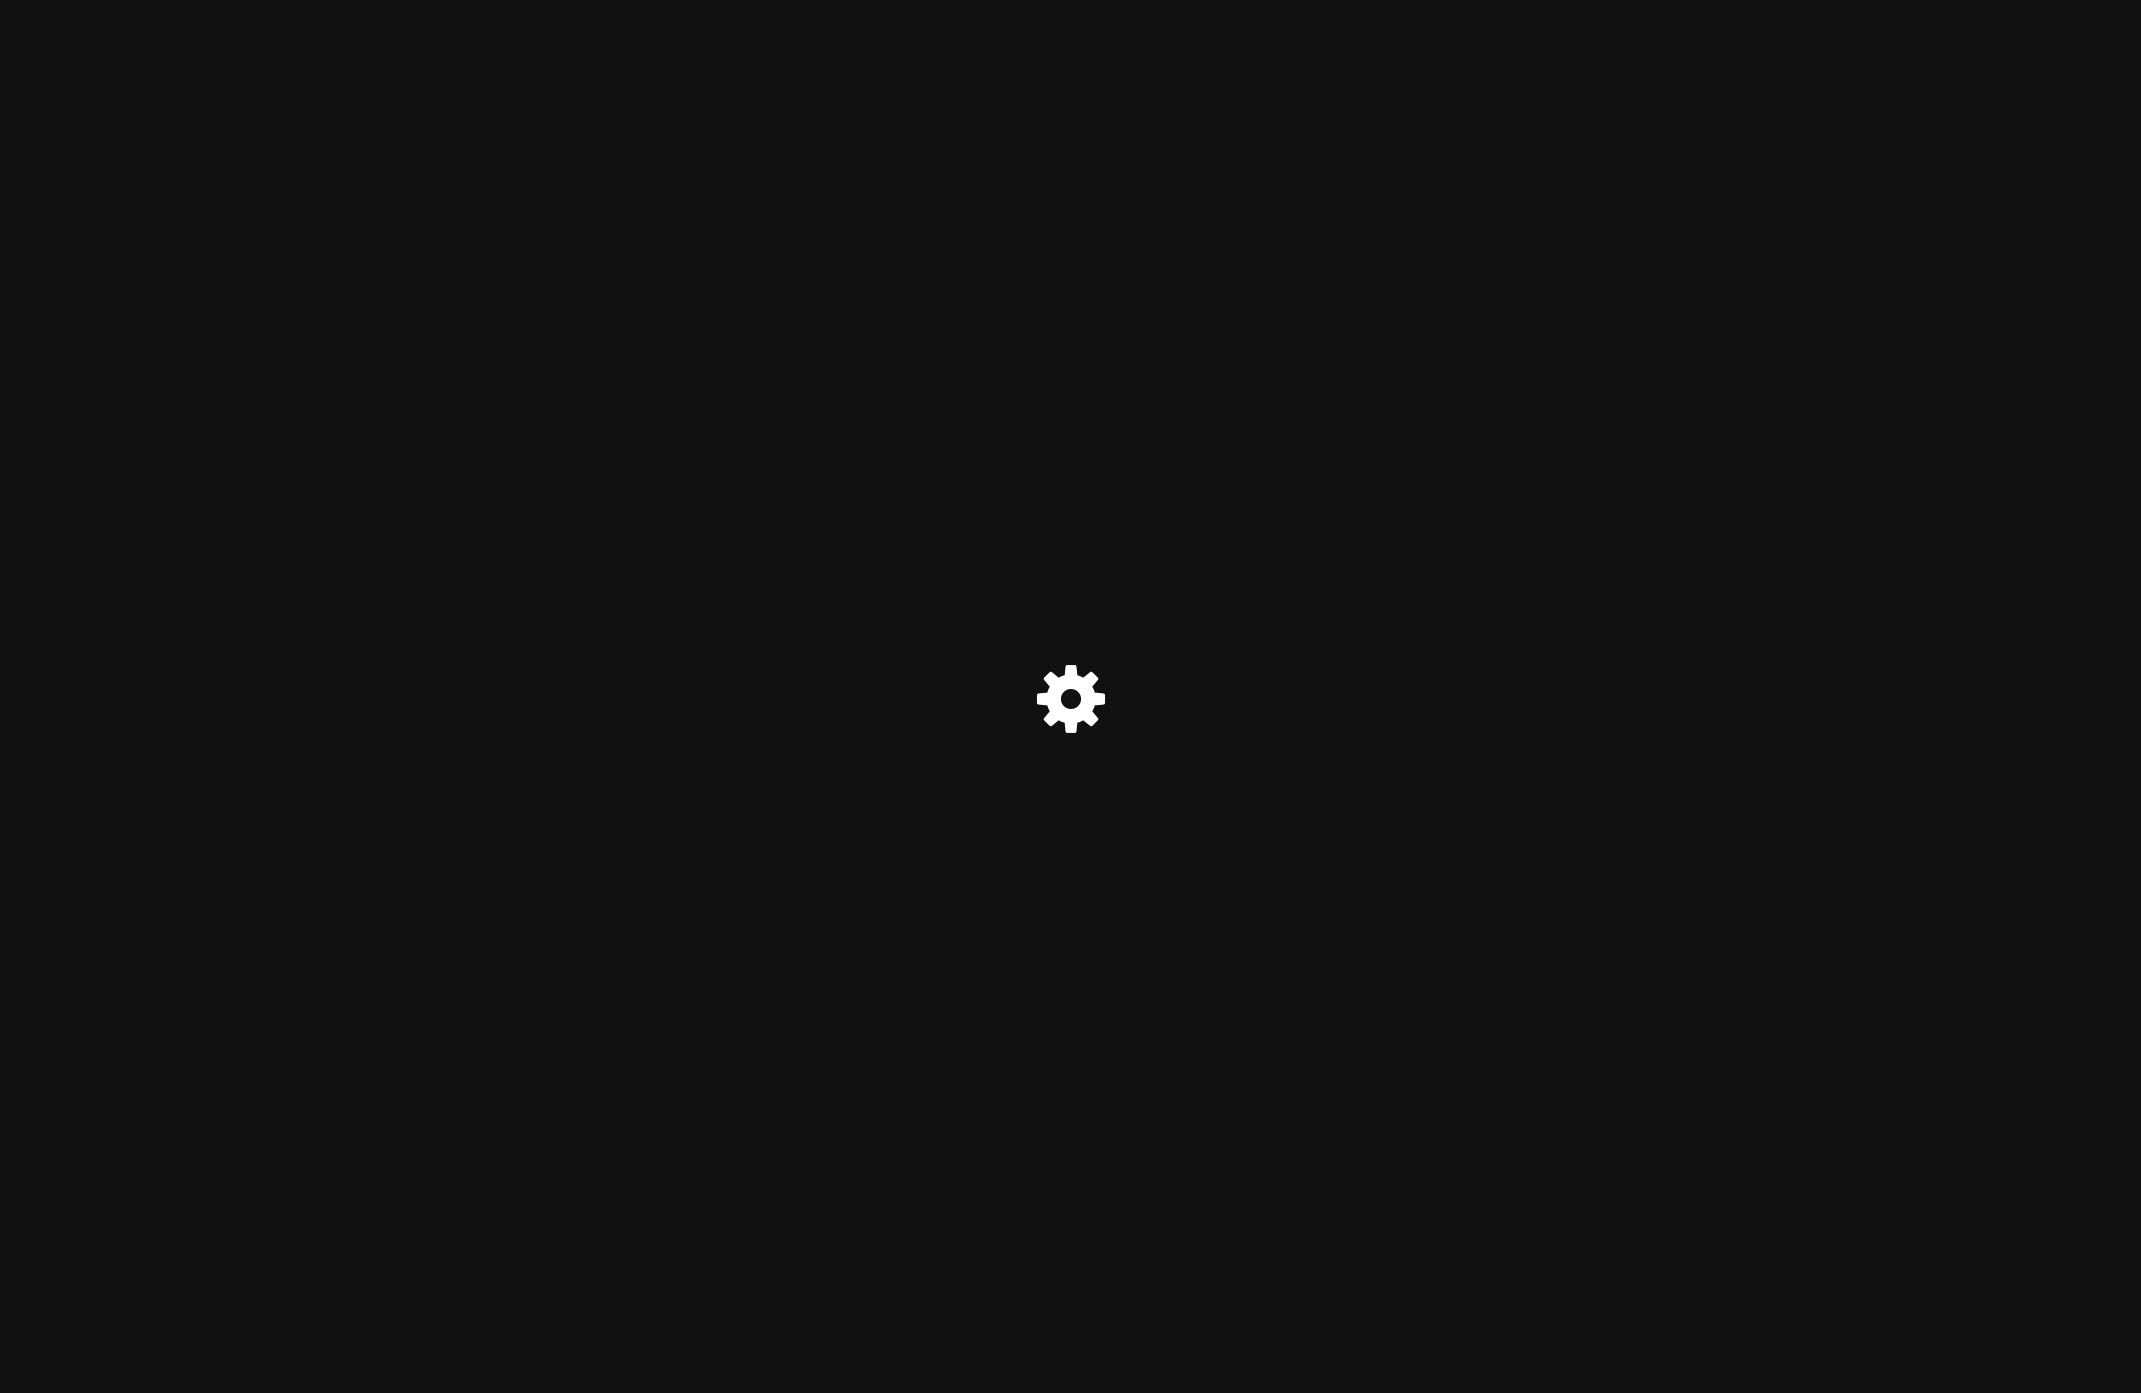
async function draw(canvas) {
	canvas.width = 2141;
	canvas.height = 1393;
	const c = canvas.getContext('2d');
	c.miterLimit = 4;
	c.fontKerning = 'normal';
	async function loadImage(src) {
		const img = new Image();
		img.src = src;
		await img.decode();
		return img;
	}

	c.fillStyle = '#111';
	c.fillRect(0, 0, 2141, 1393);
	c.drawImage(await loadImage('img1.png'), 1036, 665, 70, 68);
}

draw(document.querySelector('canvas'));
